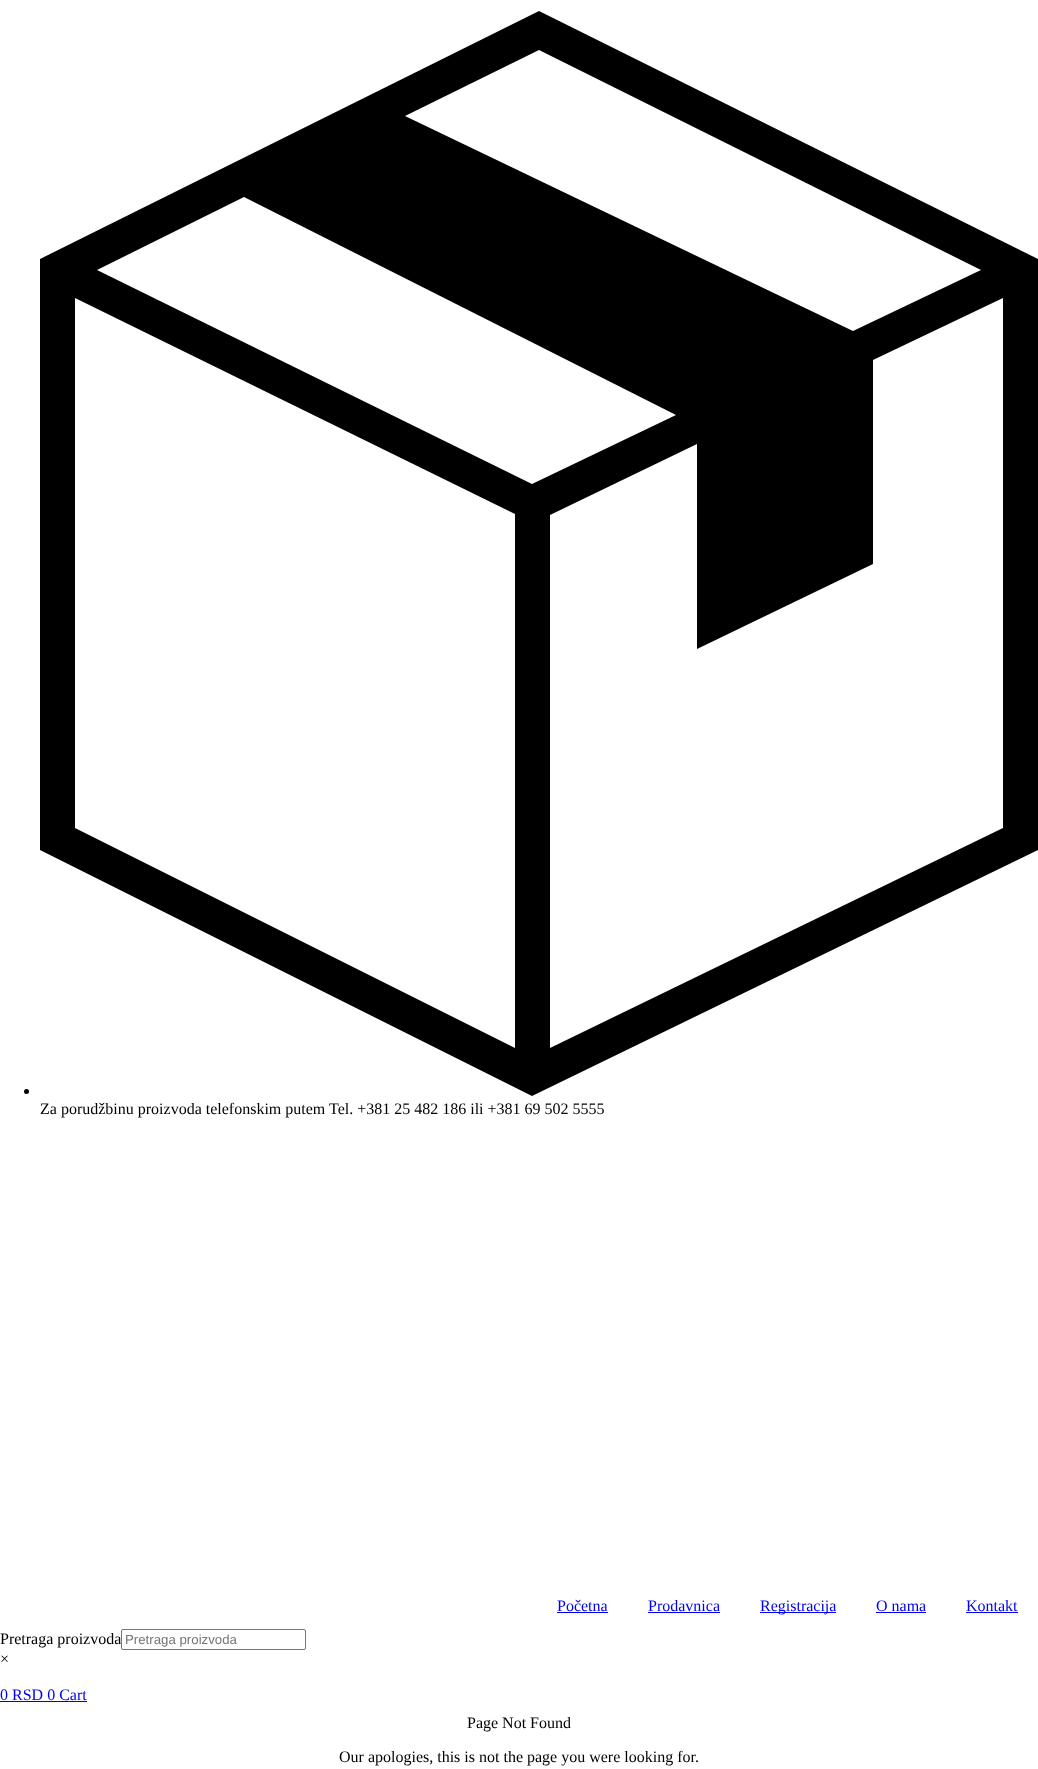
async function draw(canvas) {
	canvas.width = 1038;
	canvas.height = 1769;
	const c = canvas.getContext('2d');
	c.miterLimit = 4;
	c.fontKerning = 'normal';

	c.fillStyle = '#fff';
	c.fillRect(0, 0, 1038, 1769);
	c.fillStyle = '#000';
	c.beginPath();
	c.arc(26.5, 1091.5, 2.5, 0, 2 * Math.PI);
	c.fill();
	c.beginPath();
	c.moveTo(539, 11);
	c.lineTo(40, 259);
	c.lineTo(40, 850);
	c.lineTo(532, 1096);
	c.lineTo(1038, 850);
	c.lineTo(1038, 259);
	c.closePath();
	c.moveTo(981, 270);
	c.lineTo(853, 331);
	c.lineTo(405, 116);
	c.lineTo(539, 50);
	c.closePath();
	c.moveTo(532, 484);
	c.lineTo(97, 270);
	c.lineTo(244, 197);
	c.lineTo(676, 415);
	c.closePath();
	c.moveTo(75, 298);
	c.lineTo(515, 514);
	c.lineTo(515, 1048);
	c.lineTo(75, 828);
	c.closePath();
	c.moveTo(550, 1048);
	c.lineTo(550, 515);
	c.lineTo(697, 444);
	c.lineTo(697, 649);
	c.lineTo(873, 564);
	c.lineTo(873, 360);
	c.lineTo(1003, 298);
	c.lineTo(1003, 828);
	c.closePath();
	c.fill();
	c.font = '16px Liberation Serif';
	c.fillText('Za porudžbinu proizvoda telefonskim putem Tel. +381 25 482 186 ili +381 69 502 5555', 40, 1114);
	c.fillStyle = '#00e';
	c.fillText('Početna', 557, 1611);
	c.fillRect(557, 1612, 51, 1);
	c.fillText('Prodavnica', 648, 1611);
	c.fillRect(648, 1612, 72, 1);
	c.fillRect(760, 1612, 76, 1);
	c.fillText('Registracija', 760, 1611);
	c.fillText('O nama', 876, 1611);
	c.fillRect(876, 1612, 50, 1);
	c.fillText('Kontakt', 966, 1611);
	c.fillRect(966, 1612, 52, 1);
	c.fillStyle = '#000';
	c.fillText('Pretraga proizvoda', 0, 1644);
	c.fillStyle = '#fff';
	c.beginPath();
	c.roundRect(121.5, 1629.5, 184, 20, 1.5);
	c.fill();
	c.strokeStyle = '#767676';
	c.stroke();
	c.font = '13.25px Liberation Sans';
	c.fillStyle = '#757575';
	c.fillText('Pretraga proizvoda', 125, 1644);
	c.font = '16px Liberation Serif';
	c.fillStyle = '#000';
	c.fillText('×', 0, 1664);
	c.fillStyle = '#00e';
	c.fillText('0 RSD 0 Cart', 0, 1700);
	c.fillRect(0, 1701, 87, 1);
	c.fillStyle = '#000';
	c.fillText('Page Not Found', 467, 1728);
	c.fillText('Our apologies, this is not the page you were looking for.', 339, 1762);
}

draw(document.querySelector('canvas'));
